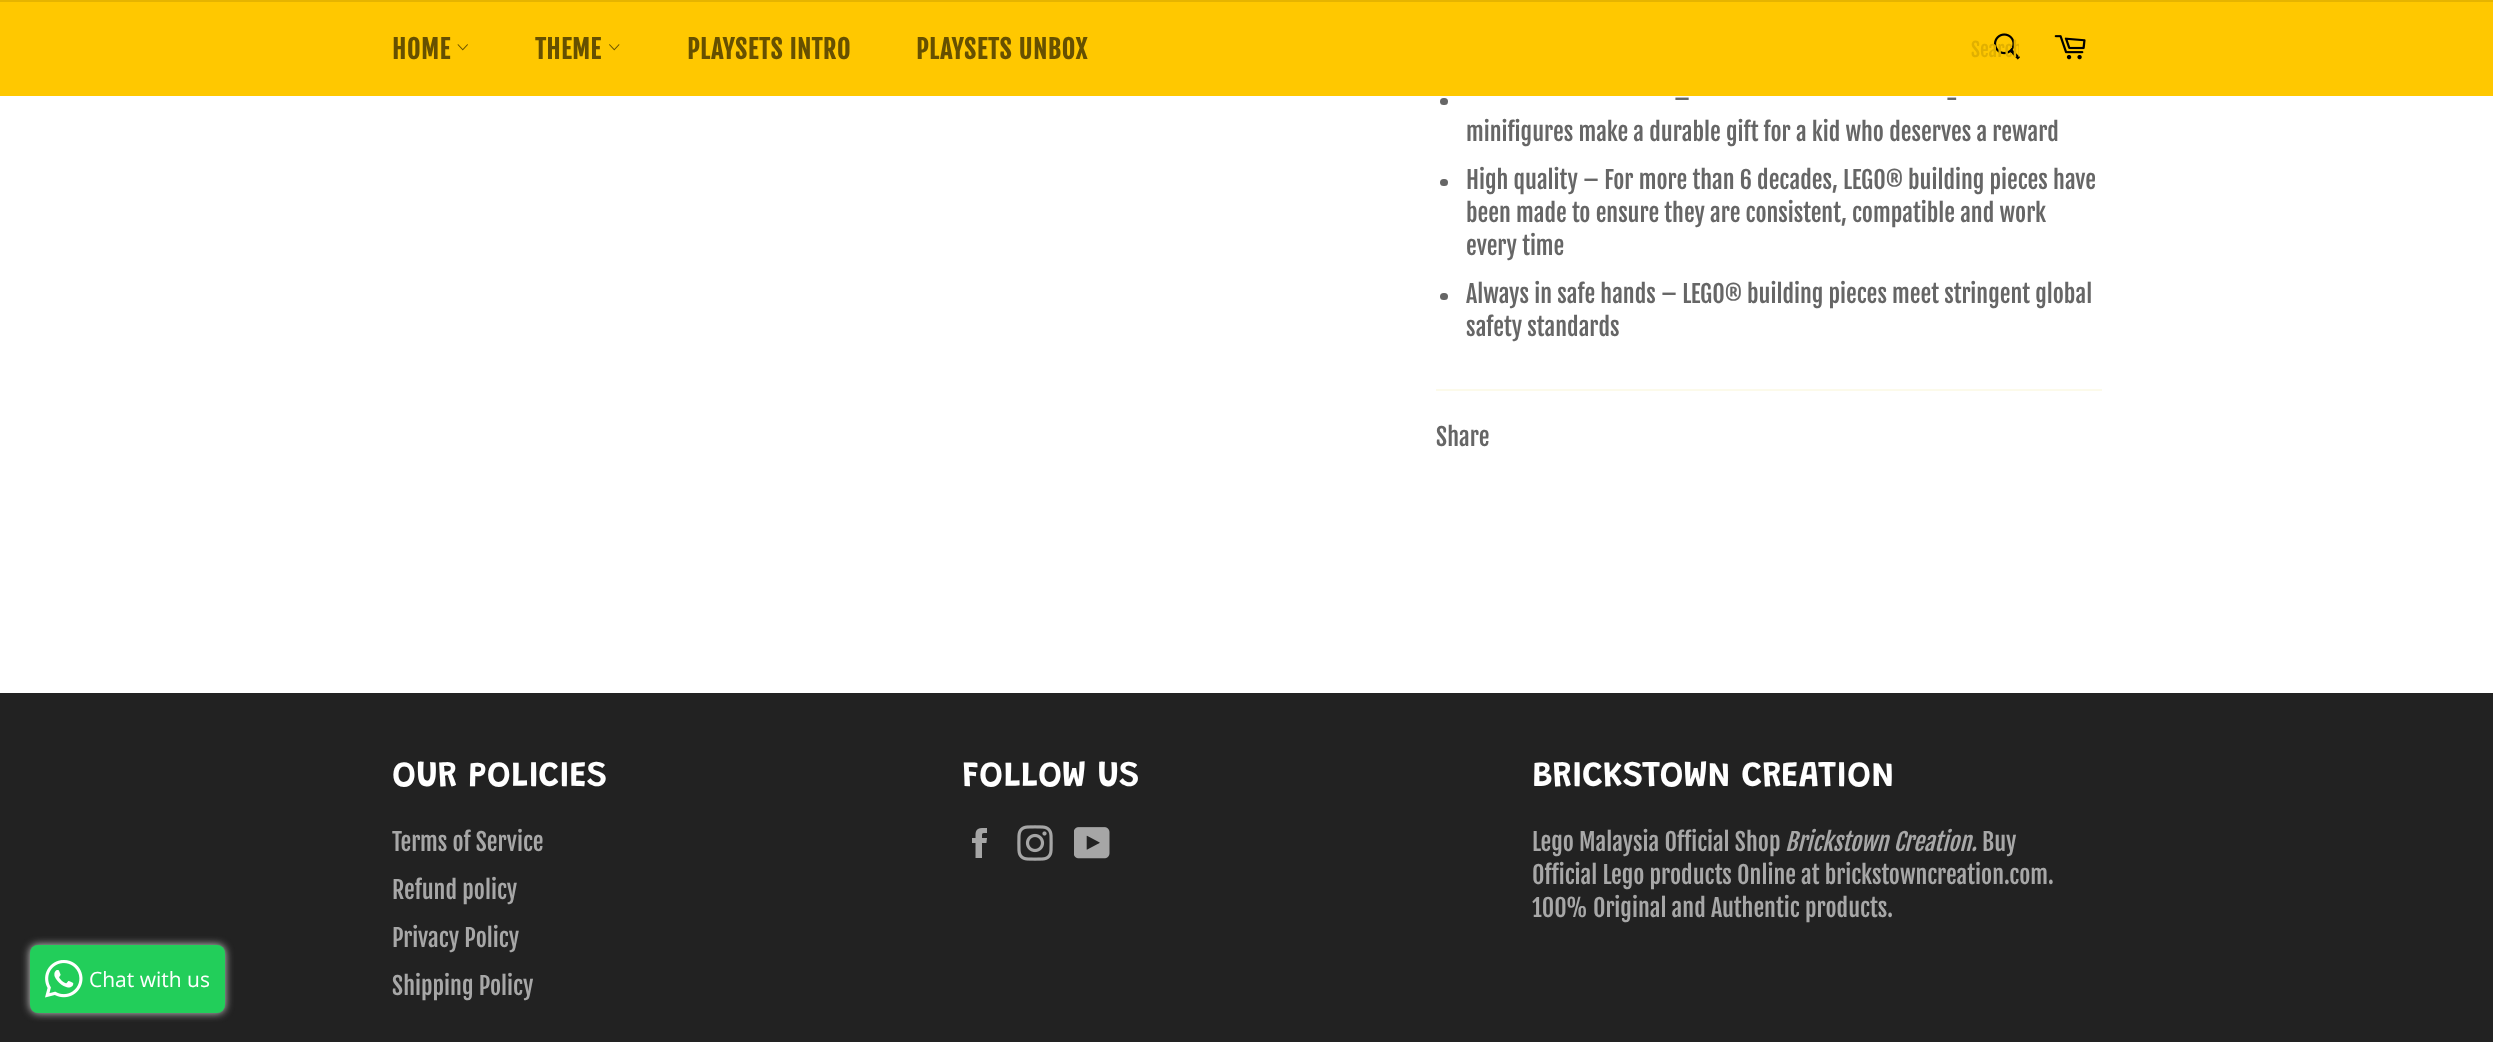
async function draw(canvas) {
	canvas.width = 2493;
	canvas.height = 1042;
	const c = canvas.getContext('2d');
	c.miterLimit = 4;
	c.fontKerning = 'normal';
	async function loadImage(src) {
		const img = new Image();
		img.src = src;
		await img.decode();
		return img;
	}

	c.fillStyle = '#fff';
	c.fillRect(0, 0, 2493, 1042);
	c.fillStyle = '#ffc800';
	c.fillRect(0, 2, 2493, 94);
	c.fillStyle = '#e6b400';
	c.fillRect(0, 0, 2493, 2);
	c.letterSpacing = '0.9px';
	c.font = 'bold 25.5px Fjalla One';
	c.fillStyle = '#665000';
	c.fillText('HOME', 392, 59);
	c.drawImage(await loadImage('img1.png'), 457, 44, 11, 7);
	c.fillText('THEME', 535, 59);
	c.drawImage(await loadImage('img2.png'), 609, 44, 11, 7);
	c.fillText('PLAYSETS INTRO', 687, 59);
	c.fillText('PLAYSETS UNBOX', 916, 59);
	c.drawImage(await loadImage('img3.png'), 1993, 33, 27, 27);
	c.save();
	c.beginPath();
	c.rect(1971, 38, 48, 24);
	c.clip();
	c.letterSpacing = '0px';
	c.font = '19.5px Fjalla One';
	c.fillStyle = '#e1b000';
	c.fillText('Search', 1971, 57);
	c.restore();
	c.drawImage(await loadImage('img4.png'), 2054, 35, 32, 25);
	c.fillStyle = '#222';
	c.fillRect(0, 693, 2493, 349);
	c.fillStyle = '#d3d3d3';
	c.filter = 'blur(4px)';
	c.beginPath();
	c.roundRect(30, 945, 195, 68, 8);
	c.fill();
	c.filter = 'none';
	c.fillStyle = '#22ce5a';
	c.beginPath();
	c.roundRect(30, 945, 195, 68, 8);
	c.fill();
	c.drawImage(await loadImage('img5.png'), 45, 960, 38, 38);
	c.letterSpacing = '0px';
	c.font = '21px Open Sans';
	c.fillStyle = '#fff';
	c.fillText('Chat with us', 89, 987);
	c.fillStyle = '#666';
	c.beginPath();
	c.roundRect(1440, 98, 8, 7, 3.5);
	c.fill();
	c.font = '24px Fjalla One';
	for (const [text, x, y] of [
		['–', 1674, 108],
		['-', 1946, 108],
		['minifigures make a durable gift for a kid who deserves a reward', 1466, 141],
	]) {
		c.fillText(text, x, y);
	}
	c.beginPath();
	c.roundRect(1440, 179, 8, 7, 3.5);
	c.fill();
	for (const [text, x, y] of [
		['High quality – For more than 6 decades, LEGO® building pieces have', 1466, 189],
		['been made to ensure they are consistent, compatible and work', 1466, 222],
		['every time', 1466, 255],
	]) {
		c.fillText(text, x, y);
	}
	c.beginPath();
	c.roundRect(1440, 293, 8, 7, 3.5);
	c.fill();
	c.fillText('Always in safe hands – LEGO® building pieces meet stringent global', 1466, 303);
	c.fillText('safety standards', 1466, 336);
	c.fillStyle = '#fcfaea';
	c.fillRect(1436, 389, 666, 2);
	c.fillStyle = '#666';
	c.fillText('Share', 1436, 446);
	c.font = '600 36px Grandstander';
	c.fillStyle = '#fff';
	c.fillText('OUR POLICIES', 392, 786);
	c.font = '24px Fjalla One';
	c.fillStyle = '#a7a7a7';
	for (const [text, x, y] of [
		['Terms of Service', 392, 851],
		['Refund policy', 392, 899],
		['Privacy Policy', 392, 947],
		['Shipping Policy', 392, 995],
	]) {
		c.fillText(text, x, y);
	}
	c.font = '600 36px Grandstander';
	c.fillStyle = '#fff';
	c.fillText('FOLLOW US', 962, 786);
	c.drawImage(await loadImage('img6.png'), 972, 828, 15, 30);
	c.drawImage(await loadImage('img7.png'), 1017, 825, 36, 36);
	c.drawImage(await loadImage('img8.png'), 1074, 827, 36, 32);
	c.fillText('BRICKSTOWN CREATION', 1532, 786);
	c.font = '24px Fjalla One';
	c.fillStyle = '#a7a7a7';
	c.fillText('Lego Malaysia Official Shop', 1532, 851);
	c.font = 'italic 24px Fjalla One';
	c.fillText('Brickstown Creation.', 1785, 851);
	c.font = '24px Fjalla One';
	for (const [text, x, y] of [
		['Buy', 1982, 851],
		['Official Lego products Online at brickstowncreation.com.', 1532, 884],
		['100% Original and Authentic products.', 1532, 917],
	]) {
		c.fillText(text, x, y);
	}
}

draw(document.querySelector('canvas'));
